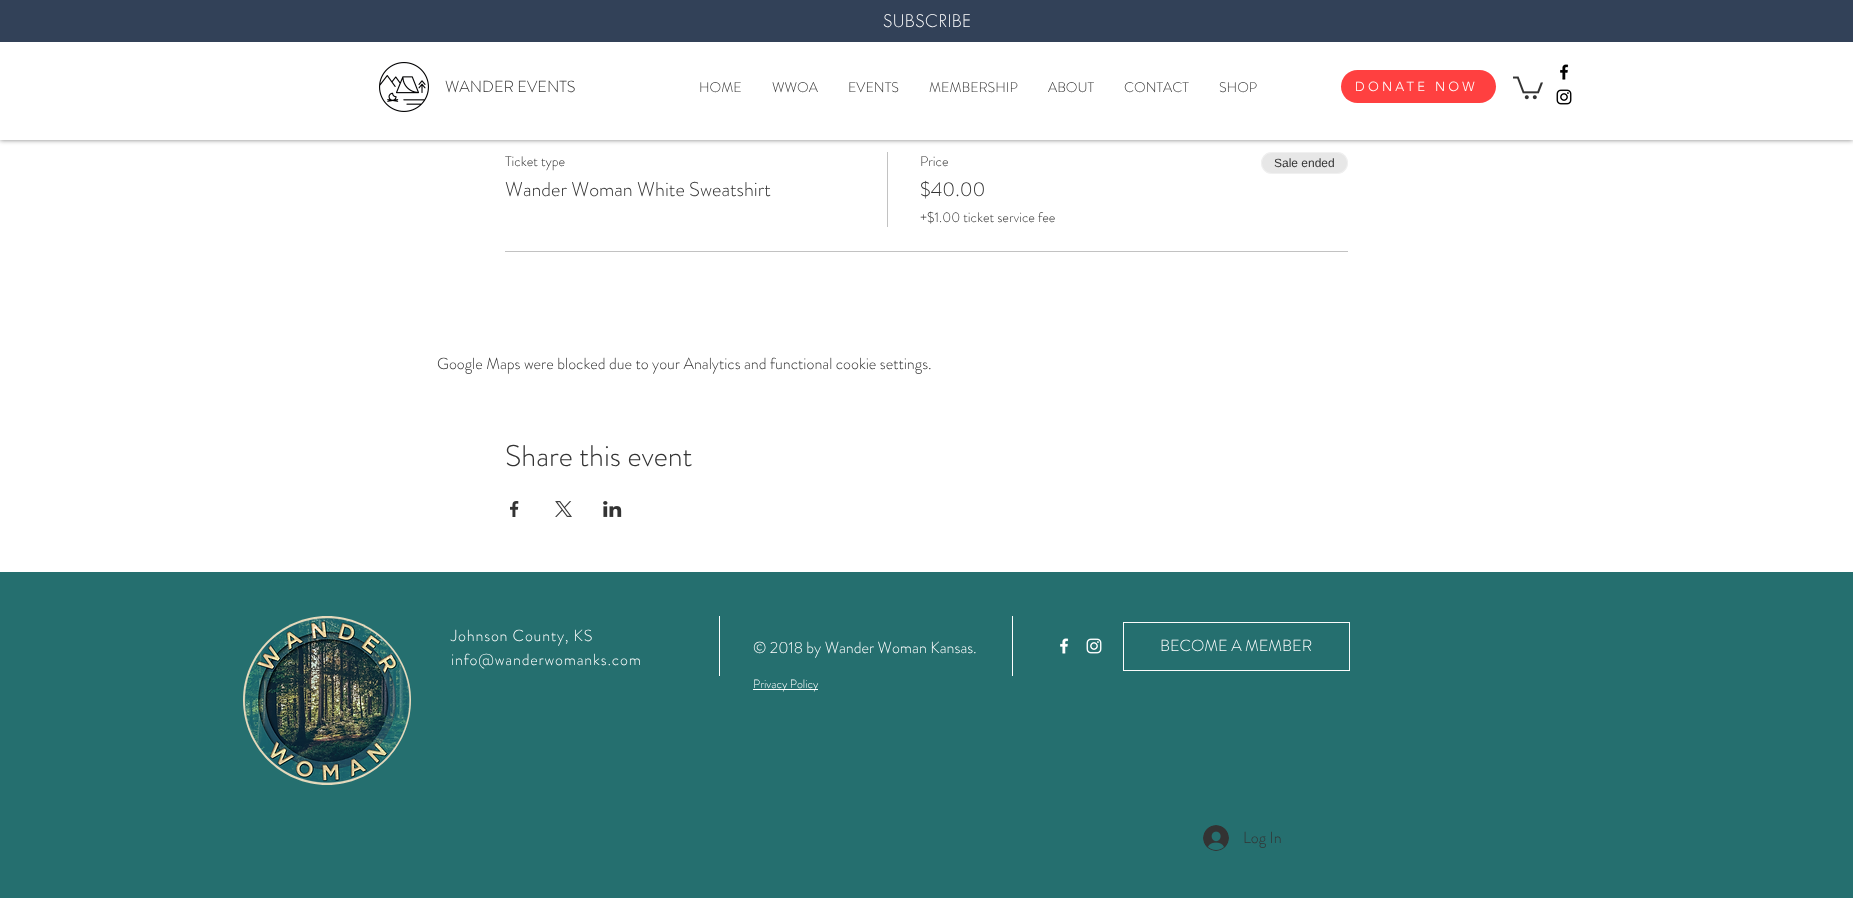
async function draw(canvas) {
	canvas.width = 1853;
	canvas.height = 898;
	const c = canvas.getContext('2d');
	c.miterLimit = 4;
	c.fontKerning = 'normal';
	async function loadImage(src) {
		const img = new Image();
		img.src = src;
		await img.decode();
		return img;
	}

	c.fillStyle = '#fff';
	c.fillRect(0, 0, 1853, 898);
	c.fillStyle = '#00000080';
	c.filter = 'blur(2.5px)';
	c.beginPath();
	c.rect(0, 0, 1853, 140);
	c.fill();
	c.filter = 'none';
	c.fillStyle = '#fff';
	c.fillRect(0, 42, 1853, 98);
	c.fillStyle = '#324158';
	c.fillRect(0, 0, 1853, 42);
	c.letterSpacing = '0.75px';
	c.font = '300 17px futura';
	c.fillStyle = '#fff';
	c.fillText('SUBSCRIBE', 883, 27);
	c.drawImage(await loadImage('img1.png'), 379, 62, 50, 50);
	c.letterSpacing = '0px';
	c.font = '300 16px "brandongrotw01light"';
	c.fillStyle = '#333';
	c.fillText('WANDER EVENTS', 445, 92);
	c.font = '300 14px "brandongrotw01light"';
	for (const [text, x, y] of [
		['HOME', 699, 92],
		['WWOA', 772, 92],
		['EVENTS', 848, 92],
		['MEMBERSHIP', 929, 92],
		['ABOUT', 1048, 92],
		['CONTACT', 1124, 92],
		['SHOP', 1219, 92],
	]) {
		c.fillText(text, x, y);
	}
	c.fillStyle = '#ff4040';
	c.beginPath();
	c.roundRect(1341, 70, 155, 33, 16.5);
	c.fill();
	c.letterSpacing = '3.25px';
	c.font = '300 13px "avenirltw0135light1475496"';
	c.fillStyle = '#fff';
	c.fillText('DONATE NOW', 1355, 91);
	c.drawImage(await loadImage('img2.png'), 1513, 76, 30, 24);
	c.drawImage(await loadImage('img3.png'), 1560, 64, 9, 16);
	c.drawImage(await loadImage('img4.png'), 1556, 89, 16, 16);
	c.fillStyle = '#c2c2c2';
	c.fillRect(505, 251, 843, 1);
	c.letterSpacing = '0px';
	c.font = '300 14px "brandongrotw01light"';
	c.fillStyle = '#333';
	c.fillText('Ticket type', 505, 166);
	c.font = '300 20px "brandongrotw01light"';
	c.fillText('Wander Woman White Sweatshirt', 505, 196);
	c.fillStyle = '#c2c2c2';
	c.fillRect(887, 152, 1, 75);
	c.font = '300 14px "brandongrotw01light"';
	c.fillStyle = '#333';
	c.fillText('Price', 920, 166);
	c.font = '300 20px "brandongrotw01light"';
	c.fillText('$40.00', 920, 196);
	c.font = '300 14px "brandongrotw01light"';
	c.fillText('+$1.00 ticket service fee', 920, 222);
	c.fillStyle = '#e7e7e7';
	c.beginPath();
	c.roundRect(1261, 152, 87, 22, 11);
	c.fill();
	c.beginPath();
	c.roundRect(1261.5, 152.5, 86, 21, 10.5);
	c.strokeStyle = '#ffffff66';
	c.stroke();
	c.font = '12px Liberation Sans';
	c.fillStyle = '#333';
	c.fillText('Sale ended', 1274, 167);
	c.font = '300 16px "brandongrotw01light"';
	c.fillText('Google Maps were blocked due to your Analytics and functional cookie settings.', 437, 369);
	c.font = '300 30px "brandongrotw01light"';
	c.fillText('Share this event', 505, 466);
	c.drawImage(await loadImage('img5.png'), 510, 501, 9, 16);
	c.drawImage(await loadImage('img6.png'), 555, 501, 17, 16);
	c.drawImage(await loadImage('img7.png'), 603, 501, 19, 16);
	c.fillStyle = '#256f6f';
	c.fillRect(0, 572, 1853, 326);
	c.fillStyle = '#e4d9bc';
	c.beginPath();
	c.moveTo(411, 700);
	c.bezierCurveTo(411, 747, 373, 785, 327, 785);
	c.bezierCurveTo(281, 785, 243, 747, 243, 700);
	c.bezierCurveTo(243, 654, 281, 616, 327, 616);
	c.bezierCurveTo(373, 616, 411, 654, 411, 700);
	c.closePath();
	c.fill();
	c.fillStyle = '#fff';
	c.fillRect(719, 616, 1, 60);
	c.fillRect(1012, 616, 1, 60);
	c.drawImage(await loadImage('img8.png'), 244, 618, 166, 165);
	c.letterSpacing = '0.8px';
	c.font = '300 16px "brandongrotw01light"';
	c.fillText('Johnson County, KS', 451, 641);
	c.fillText('info@wanderwomanks.com', 451, 665);
	c.letterSpacing = '0px';
	c.fillText('© 2018 by Wander Woman Kansas', 753, 653);
	c.letterSpacing = '0.8px';
	c.fillText('.', 973, 653);
	c.drawImage(await loadImage('img9.png'), 1060, 638, 9, 16);
	c.drawImage(await loadImage('img10.png'), 1086, 638, 16, 16);
	c.strokeStyle = '#fbfbfb';
	c.strokeRect(1123.5, 622.5, 226, 48);
	c.letterSpacing = '0px';
	c.fillText('BECOME A MEMBER', 1160, 651);
	c.fillRect(753, 689, 65, 1);
	c.font = '300 12px "brandongrotw01light"';
	c.fillText('Privacy Policy', 753, 688);
	c.drawImage(await loadImage('img11.png'), 1203, 825, 26, 26);
	c.font = '300 16px "brandongrotw01light"';
	c.fillStyle = '#333';
	c.fillText('Log In', 1243, 843);
}

draw(document.querySelector('canvas'));
